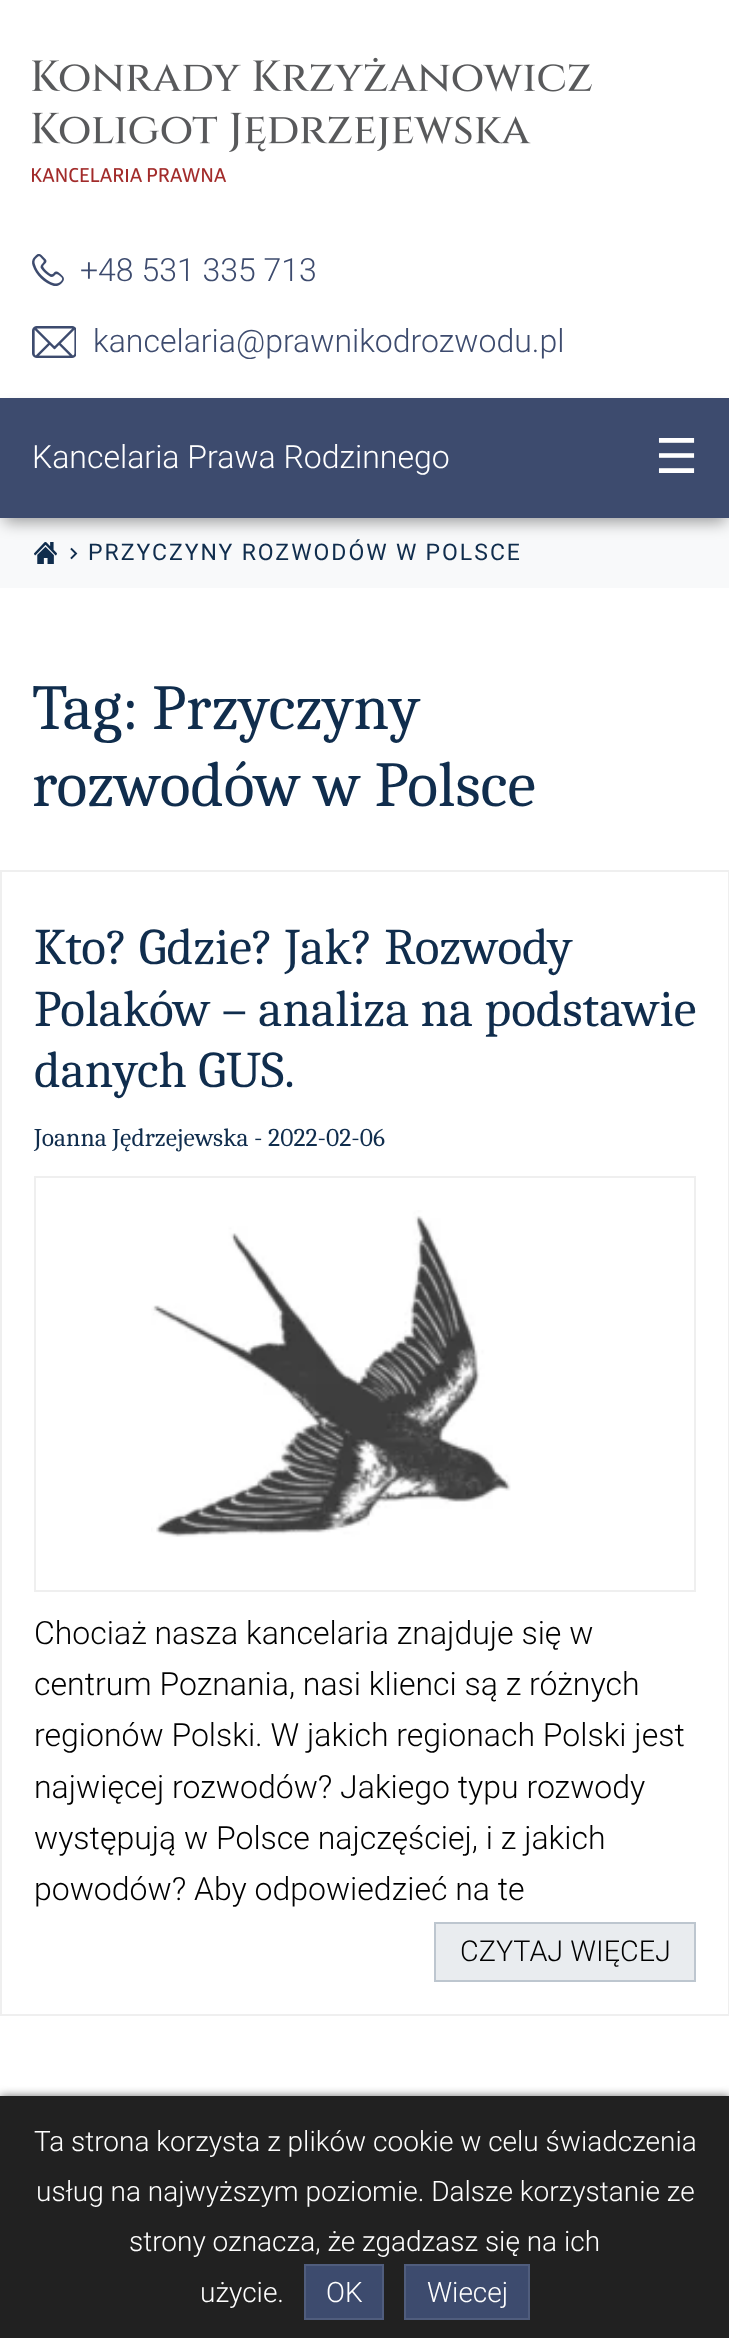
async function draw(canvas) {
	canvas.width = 729;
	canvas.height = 2338;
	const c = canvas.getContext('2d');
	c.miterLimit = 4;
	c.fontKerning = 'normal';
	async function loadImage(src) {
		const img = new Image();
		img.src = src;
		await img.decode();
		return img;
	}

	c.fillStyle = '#fff';
	c.fillRect(0, 0, 729, 2338);
	c.drawImage(await loadImage('img1.png'), 32, 57, 560, 126);
	c.drawImage(await loadImage('img2.png'), 32, 254, 32, 32);
	c.font = '300 32px Roboto';
	c.fillStyle = '#3d4b6e';
	c.fillText('+48 531 335 713', 80, 281);
	c.drawImage(await loadImage('img3.png'), 32, 326, 44, 32);
	c.fillText('kancelaria@prawnikodrozwodu.pl', 93, 352);
	c.fillStyle = '#f8f9fa';
	c.fillRect(0, 518, 729, 70);
	c.drawImage(await loadImage('img4.png'), 34, 542, 23, 22);
	c.fillStyle = '#00000061';
	c.filter = 'blur(8px)';
	c.beginPath();
	c.rect(4, 410, 722, 112);
	c.fill();
	c.filter = 'none';
	c.fillStyle = '#3d4b6e';
	c.fillRect(0, 398, 729, 120);
	c.fillStyle = '#fff';
	c.fillText('Kancelaria Prawa Rodzinnego', 32, 468);
	c.font = '48px DejaVu Sans';
	c.fillText('☰', 655, 473);
	c.drawImage(await loadImage('img5.png'), 70, 547, 8, 13);
	c.letterSpacing = '2px';
	c.wordSpacing = '-0.5px';
	c.font = '23px Roboto';
	c.fillStyle = '#102d4d';
	c.fillText('PRZYCZYNY ROZWODÓW W POLSCE', 88, 560);
	c.letterSpacing = '0px';
	c.wordSpacing = '0px';
	c.font = '64px Caladea';
	for (const [text, x, y] of [
		['Tag:', 32, 729],
		['Przyczyny', 152, 729],
		['rozwodów w Polsce', 32, 806],
	]) {
		c.fillText(text, x, y);
	}
	c.strokeStyle = '#efefef';
	c.lineWidth = 2;
	c.strokeRect(1, 871, 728, 1144);
	c.font = '51.25px Caladea';
	for (const [text, x, y] of [
		['Kto? Gdzie? Jak? Rozwody', 34, 964],
		['Polaków – analiza na podstawie', 34, 1026],
		['danych GUS.', 34, 1087],
	]) {
		c.fillText(text, x, y);
	}
	c.font = '25.6px Caladea';
	c.fillText('Joanna Jędrzejewska - 2022-02-06', 34, 1146);
	c.strokeRect(35, 1177, 660, 414);
	c.drawImage(await loadImage('img6.png'), 151, 1210, 360, 327);
	c.font = '300 32px Roboto';
	c.fillStyle = '#000';
	for (const [text, x, y] of [
		['Chociaż nasza kancelaria znajduje się w', 34, 1644],
		['centrum Poznania, nasi klienci są z różnych', 34, 1695],
		['regionów Polski. W jakich regionach Polski jest', 34, 1746],
		['najwięcej rozwodów? Jakiego typu rozwody', 34, 1798],
		['występują w Polsce najczęściej, i z jakich', 34, 1849],
		['powodów? Aby odpowiedzieć na te', 34, 1900],
	]) {
		c.fillText(text, x, y);
	}
	c.fillStyle = '#e9ecef';
	c.beginPath();
	c.rect(435, 1923, 260, 58);
	c.fill();
	c.strokeStyle = '#bdc6cf';
	c.stroke();
	c.font = '300 28.75px Roboto';
	c.fillStyle = '#000';
	c.fillText('CZYTAJ WIĘCEJ', 460, 1961);
	c.fillStyle = '#717171';
	c.filter = 'blur(5px)';
	c.beginPath();
	c.rect(0, 2096, 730, 242);
	c.fill();
	c.filter = 'none';
	c.fillStyle = '#212121';
	c.fillRect(0, 2096, 729, 242);
	c.font = '300 28px Roboto';
	c.fillStyle = '#fff';
	for (const [text, x, y] of [
		['Ta strona korzysta z plików cookie w celu świadczenia', 34, 2151],
		['usług na najwyższym poziomie. Dalsze korzystanie ze', 36, 2201],
		['strony oznacza, że zgadzasz się na ich', 129, 2251],
		['użycie.', 200, 2302],
	]) {
		c.fillText(text, x, y);
	}
	c.fillStyle = '#3d4b6e';
	c.beginPath();
	c.rect(305, 2265, 78, 54);
	c.fill();
	c.strokeStyle = '#505d7d';
	c.stroke();
	c.fillStyle = '#fff';
	c.fillText('OK', 326, 2302);
	c.fillStyle = '#3d4b6e';
	c.beginPath();
	c.rect(405, 2265, 124, 54);
	c.fill();
	c.stroke();
	c.fillStyle = '#fff';
	c.fillText('Wiecej', 427, 2302);
}

draw(document.querySelector('canvas'));
